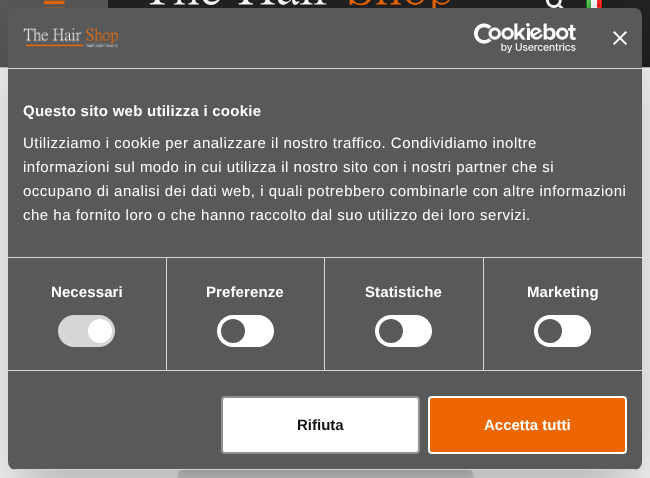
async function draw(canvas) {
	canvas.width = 650;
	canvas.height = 478;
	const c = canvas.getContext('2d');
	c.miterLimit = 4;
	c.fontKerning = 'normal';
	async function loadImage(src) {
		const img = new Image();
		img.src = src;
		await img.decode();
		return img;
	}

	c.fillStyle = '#fff';
	c.fillRect(0, 0, 650, 478);
	for (const [x, y, w, h, color] of [
		[108, 0, 542, 67, '#222'],
		[0, 67, 650, 1, '#c4c6c8'],
		[0, 0, 108, 67, '#595959'],
	]) {
		c.fillStyle = color;
		c.fillRect(x, y, w, h);
	}
	c.drawImage(await loadImage('img1.png'), 44, 0, 21, 8);
	c.drawImage(await loadImage('img2.png'), 149, 0, 301, 8);
	c.drawImage(await loadImage('img3.png'), 546, 0, 18, 8);
	c.drawImage(await loadImage('img4.png'), 586, 0, 16, 8);
	c.drawImage(await loadImage('img5.png'), 171, 470, 308, 8);
	c.fillStyle = '#0000004d';
	c.filter = 'blur(34px)';
	c.beginPath();
	c.roundRect(8, 40, 634, 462, 8);
	c.fill();
	c.filter = 'none';
	c.fillStyle = '#595959';
	c.beginPath();
	c.roundRect(8, 8, 634, 462, 8);
	c.fill();
	c.fillStyle = '#d6d6d6';
	c.fillRect(8, 68, 634, 1);
	c.drawImage(await loadImage('img6.png'), 23, 27, 96, 21);
	c.drawImage(await loadImage('img7.png'), 474, 23, 102, 30);
	c.drawImage(await loadImage('img8.png'), 613, 31, 14, 14);
	c.fillRect(8, 257, 634, 1);
	c.letterSpacing = '0.25px';
	c.font = 'bold 15px Liberation Sans';
	c.fillStyle = '#fff';
	c.fillText('Questo sito web utilizza i cookie', 23, 116);
	c.letterSpacing = '0.5px';
	c.font = '15px Liberation Sans';
	for (const [text, x, y] of [
		['Utilizziamo i cookie per analizzare il nostro traffico. Condividiamo inoltre', 23, 148],
		['informazioni sul modo in cui utilizza il nostro sito con i nostri partner che si', 23, 172],
		['occupano di analisi dei dati web, i quali potrebbero combinarle con altre informazioni', 23, 196],
		['che ha fornito loro o che hanno raccolto dal suo utilizzo dei loro servizi.', 23, 220],
	]) {
		c.fillText(text, x, y);
	}
	c.fillStyle = '#d6d6d6';
	c.fillRect(8, 370, 634, 1);
	c.fillRect(166, 258, 1, 112);
	c.letterSpacing = '0.1px';
	c.font = 'bold 15px Liberation Sans';
	c.fillStyle = '#fff';
	c.fillText('Necessari', 51, 297);
	c.fillStyle = '#d6d6d6';
	c.beginPath();
	c.roundRect(58, 315, 57, 32, 16);
	c.fill();
	c.fillStyle = '#fff';
	c.beginPath();
	c.arc(100, 331, 12, 0, 2 * Math.PI);
	c.fill();
	c.fillStyle = '#d6d6d6';
	c.fillRect(324, 258, 1, 112);
	c.fillStyle = '#fff';
	c.fillText('Preferenze', 206, 297);
	c.beginPath();
	c.roundRect(217, 315, 57, 32, 16);
	c.fill();
	c.fillStyle = '#595959';
	c.beginPath();
	c.arc(233, 331, 12, 0, 2 * Math.PI);
	c.fill();
	c.fillStyle = '#d6d6d6';
	c.fillRect(483, 258, 1, 112);
	c.fillStyle = '#fff';
	c.fillText('Statistiche', 365, 297);
	c.beginPath();
	c.roundRect(375, 315, 57, 32, 16);
	c.fill();
	c.fillStyle = '#595959';
	c.beginPath();
	c.arc(391, 331, 12, 0, 2 * Math.PI);
	c.fill();
	c.fillStyle = '#fff';
	c.fillText('Marketing', 527, 297);
	c.beginPath();
	c.roundRect(534, 315, 57, 32, 16);
	c.fill();
	c.fillStyle = '#595959';
	c.beginPath();
	c.arc(550, 331, 12, 0, 2 * Math.PI);
	c.fill();
	c.save();
	c.beginPath();
	c.roundRect(8, 8, 634, 462, 8);
	c.clip();
	c.fillStyle = '#d6d6d6';
	c.fillRect(8, 469, 634, 1);
	c.restore();
	c.fillStyle = '#fff';
	c.beginPath();
	c.roundRect(222, 397, 197, 56, 3);
	c.fill();
	c.strokeStyle = '#919191';
	c.lineWidth = 2;
	c.stroke();
	c.letterSpacing = '0px';
	c.fillStyle = '#141414';
	c.fillText('Rifiuta', 297, 430);
	c.fillStyle = '#ec6602';
	c.beginPath();
	c.roundRect(429, 397, 197, 56, 3);
	c.fill();
	c.strokeStyle = '#fff';
	c.stroke();
	c.fillStyle = '#fff';
	c.fillText('Accetta tutti', 484, 430);
}

draw(document.querySelector('canvas'));
